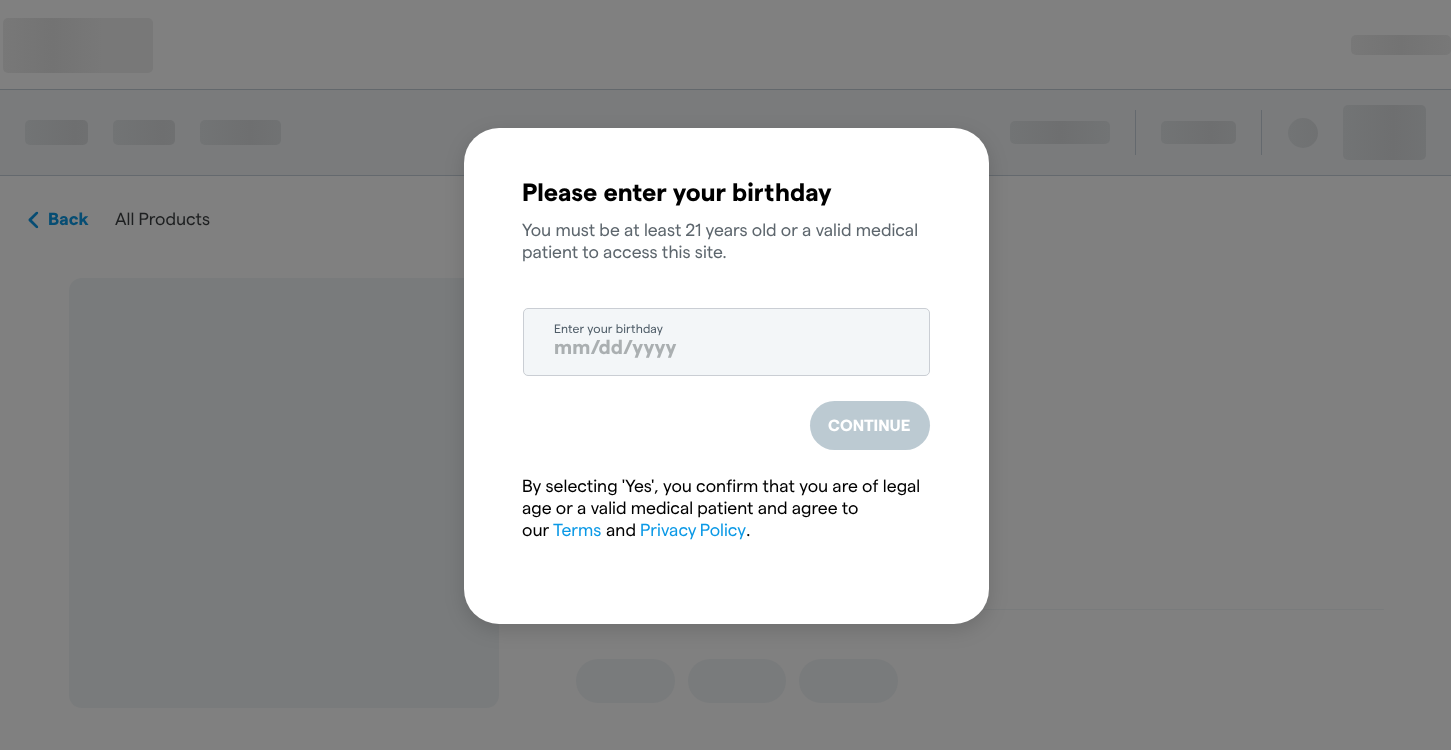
async function draw(canvas) {
	canvas.width = 1451;
	canvas.height = 750;
	const c = canvas.getContext('2d');
	c.miterLimit = 4;
	c.fontKerning = 'normal';
	async function loadImage(src) {
		const img = new Image();
		img.src = src;
		await img.decode();
		return img;
	}
	let gradient;

	c.fillStyle = '#808080';
	c.fillRect(0, 0, 1451, 750);
	c.fillStyle = '#63686c';
	c.fillRect(0, 89, 1451, 1);
	gradient = c.createLinearGradient(2.5, 45, 253, 45);
	gradient.addColorStop(0, '#787878');
	gradient.addColorStop(0.2, '#737373');
	gradient.addColorStop(0.4, '#787878');
	c.fillStyle = gradient;
	c.beginPath();
	c.roundRect(3, 18, 150, 55, 5);
	c.fill();
	gradient = c.createLinearGradient(1351, 45, 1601, 45);
	gradient.addColorStop(0, '#787878');
	gradient.addColorStop(0.2, '#737373');
	gradient.addColorStop(0.4, '#787878');
	c.fillStyle = gradient;
	c.beginPath();
	c.roundRect(1351, 35, 100, 20, 5);
	c.fill();
	c.fillStyle = '#7a7b7c';
	c.fillRect(0, 90, 1451, 85);
	c.fillStyle = '#64696e';
	c.fillRect(0, 175, 1451, 1);
	gradient = c.createLinearGradient(25, 133, 275, 133);
	gradient.addColorStop(0, '#727475');
	gradient.addColorStop(0.2, '#6e6f70');
	gradient.addColorStop(0.4, '#727475');
	c.fillStyle = gradient;
	c.beginPath();
	c.roundRect(25, 120, 63, 25, 5);
	c.fill();
	gradient = c.createLinearGradient(113, 133, 363, 133);
	gradient.addColorStop(0, '#727475');
	gradient.addColorStop(0.2, '#6e6f70');
	gradient.addColorStop(0.4, '#727475');
	c.fillStyle = gradient;
	c.beginPath();
	c.roundRect(113, 120, 62, 25, 5);
	c.fill();
	gradient = c.createLinearGradient(200, 133, 450, 133);
	gradient.addColorStop(0, '#727475');
	gradient.addColorStop(0.2, '#6e6f70');
	gradient.addColorStop(0.4, '#727475');
	c.fillStyle = gradient;
	c.beginPath();
	c.roundRect(200, 120, 81, 25, 5);
	c.fill();
	gradient = c.createLinearGradient(1010, 133, 1260, 133);
	gradient.addColorStop(0, '#727475');
	gradient.addColorStop(0.2, '#6e6f70');
	gradient.addColorStop(0.4, '#727475');
	c.fillStyle = gradient;
	c.beginPath();
	c.roundRect(1010, 121, 100, 23, 5);
	c.fill();
	c.fillStyle = '#64696e';
	c.fillRect(1135, 110, 1, 45);
	gradient = c.createLinearGradient(1161, 133, 1411, 133);
	gradient.addColorStop(0, '#727475');
	gradient.addColorStop(0.2, '#6e6f70');
	gradient.addColorStop(0.4, '#727475');
	c.fillStyle = gradient;
	c.beginPath();
	c.roundRect(1161, 121, 75, 23, 5);
	c.fill();
	c.fillStyle = '#64696e';
	c.fillRect(1261, 110, 1, 45);
	gradient = c.createLinearGradient(1288, 133, 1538, 133);
	gradient.addColorStop(0, '#727475');
	gradient.addColorStop(0.2, '#6e6f70');
	gradient.addColorStop(0.4, '#727475');
	c.fillStyle = gradient;
	c.beginPath();
	c.arc(1303, 133, 15, 0, 2 * Math.PI);
	c.fill();
	gradient = c.createLinearGradient(1343, 133, 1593, 133);
	gradient.addColorStop(0, '#727475');
	gradient.addColorStop(0.2, '#6e6f70');
	gradient.addColorStop(0.4, '#727475');
	c.fillStyle = gradient;
	c.beginPath();
	c.roundRect(1343, 105, 83, 55, 5);
	c.fill();
	c.drawImage(await loadImage('img1.png'), 28, 211, 11, 18);
	c.font = 'bold 17.5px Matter';
	c.fillStyle = '#064d73';
	c.fillText('Back', 48, 225);
	c.font = '17.5px Matter';
	c.fillStyle = '#1d1f20';
	c.fillText('All Products', 115, 225);
	c.fillStyle = '#797b7c';
	c.beginPath();
	c.roundRect(69, 278, 430, 430, 13);
	c.fill();
	c.beginPath();
	c.roundRect(576, 609, 808, 1, 0.5);
	c.fill();
	c.beginPath();
	c.roundRect(576, 659, 99, 44, 22);
	c.fill();
	c.beginPath();
	c.roundRect(688, 659, 98, 44, 22);
	c.fill();
	c.beginPath();
	c.roundRect(799, 659, 99, 44, 22);
	c.fill();
	c.fillStyle = '#00000024';
	c.filter = 'blur(9.5px)';
	c.beginPath();
	c.roundRect(464, 134, 525, 496, 35);
	c.fill();
	c.filter = 'none';
	c.fillStyle = '#fff';
	c.beginPath();
	c.roundRect(464, 128, 525, 496, 35);
	c.fill();
	c.font = 'bold 25px Matter';
	c.fillStyle = '#000';
	c.fillText('Please enter your birthday', 522, 201);
	c.font = '17.5px Matter';
	c.fillStyle = '#5d666d';
	c.fillText('You must be at least 21 years old or a valid medical', 522, 236);
	c.fillText('patient to access this site.', 522, 258);
	c.fillStyle = '#f3f6f8';
	c.beginPath();
	c.roundRect(523.5, 308.5, 406, 67, 4.5);
	c.fill();
	c.strokeStyle = '#caced4';
	c.stroke();
	c.letterSpacing = '0.1px';
	c.font = '12.25px Matter';
	c.fillStyle = '#4f5d68';
	c.fillText('Enter your birthday', 554, 333);
	c.letterSpacing = '0.25px';
	c.font = 'bold 20px Matter';
	c.fillStyle = '#aaafb1';
	c.fillText('mm/dd/yyyy', 554, 354);
	c.fillStyle = '#bccad2';
	c.beginPath();
	c.roundRect(810, 401, 120, 49, 24.5);
	c.fill();
	c.letterSpacing = '0px';
	c.font = 'bold 16.25px Matter';
	c.fillStyle = '#fff';
	c.fillText('CONTINUE', 828, 431);
	c.font = '17.5px Matter';
	c.fillStyle = '#000';
	for (const [text, x, y] of [
		['By selecting \'Yes\', you confirm that you are of legal', 522, 492],
		['age or a valid medical patient and agree to', 522, 514],
		['our', 522, 536],
	]) {
		c.fillText(text, x, y);
	}
	c.fillStyle = '#0b99e6';
	c.fillText('Terms', 553, 536);
	c.fillStyle = '#000';
	c.fillText('and', 606, 536);
	c.wordSpacing = '-1px';
	c.fillStyle = '#0b99e6';
	c.fillText('Privacy Policy', 640, 536);
	c.wordSpacing = '0px';
	c.fillStyle = '#000';
	c.fillText('.', 746, 536);
}

draw(document.querySelector('canvas'));
